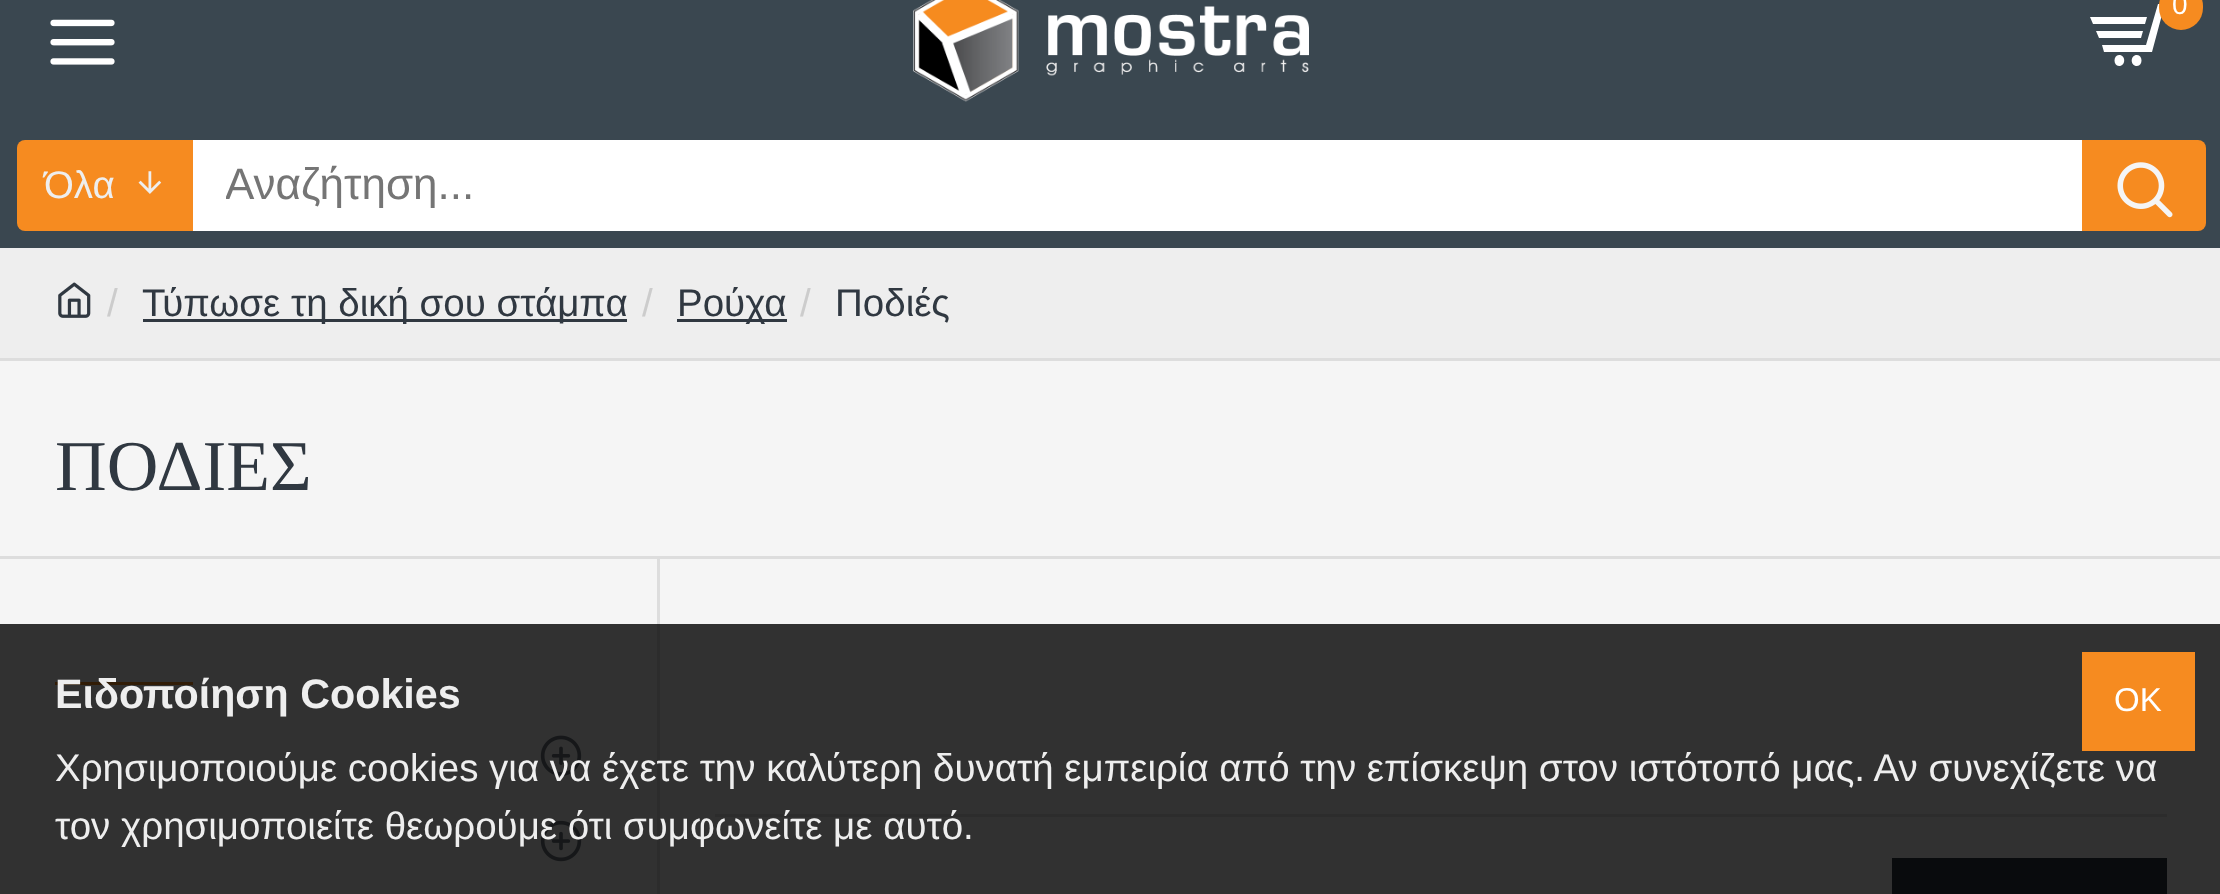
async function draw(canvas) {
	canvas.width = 2220;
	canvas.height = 894;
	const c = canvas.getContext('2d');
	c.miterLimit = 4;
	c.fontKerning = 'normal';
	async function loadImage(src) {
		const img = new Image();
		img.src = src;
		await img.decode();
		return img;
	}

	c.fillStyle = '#f5f5f5';
	c.fillRect(0, 0, 2220, 894);
	c.fillStyle = '#3a4750';
	c.fillRect(0, 0, 2220, 248);
	c.drawImage(await loadImage('img1.png'), 913, 0, 396, 102);
	c.fillStyle = '#fff';
	c.beginPath();
	c.moveTo(2147, 17);
	c.lineTo(2145, 24);
	c.lineTo(2093, 24);
	c.lineTo(2090, 17);
	c.closePath();
	c.moveTo(2099, 38);
	c.lineTo(2141, 38);
	c.lineTo(2143, 31);
	c.lineTo(2096, 31);
	c.closePath();
	c.moveTo(2119, 55);
	c.bezierCurveTo(2113, 55, 2113, 66, 2119, 66);
	c.bezierCurveTo(2126, 66, 2126, 55, 2119, 55);
	c.closePath();
	c.moveTo(2158, 4);
	c.lineTo(2146, 45);
	c.lineTo(2102, 45);
	c.lineTo(2104, 52);
	c.lineTo(2152, 52);
	c.lineTo(2163, 11);
	c.lineTo(2170, 11);
	c.lineTo(2173, 4);
	c.closePath();
	c.moveTo(2137, 55);
	c.bezierCurveTo(2130, 55, 2130, 66, 2137, 66);
	c.bezierCurveTo(2143, 66, 2143, 55, 2137, 55);
	c.closePath();
	c.fill();
	c.fillStyle = '#f68b20';
	c.beginPath();
	c.roundRect(2159, -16, 44, 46, 22);
	c.fill();
	c.font = '28px Liberation Sans';
	c.fillStyle = '#fff';
	c.fillText('0', 2172, 14);
	c.drawImage(await loadImage('img2.png'), 50, 19, 65, 46);
	c.fillStyle = '#f68b20';
	c.beginPath();
	c.roundRect(17, 140, 176, 91, [8, 0, 0, 8]);
	c.fill();
	c.font = '38.5px Liberation Sans';
	c.fillStyle = '#eee';
	c.fillText('Όλα', 44, 198);
	c.drawImage(await loadImage('img3.png'), 138, 171, 24, 23);
	c.fillStyle = '#fff';
	c.fillRect(193, 140, 1889, 91);
	c.save();
	c.beginPath();
	c.rect(226, 162, 1823, 50);
	c.clip();
	c.font = '44px Liberation Sans';
	c.fillStyle = '#757575';
	c.fillText('Αναζήτηση...', 225, 199);
	c.restore();
	c.fillStyle = '#f68b20';
	c.beginPath();
	c.roundRect(2082, 140, 124, 91, [0, 8, 8, 0]);
	c.fill();
	c.drawImage(await loadImage('img4.png'), 2117, 162, 56, 56);
	c.fillStyle = '#eee';
	c.fillRect(0, 248, 2220, 110);
	c.fillStyle = '#ddd';
	c.fillRect(0, 358, 2220, 3);
	c.drawImage(await loadImage('img5.png'), 58, 282, 33, 36);
	c.fillStyle = '#ccc';
	c.fillText('/', 107, 316);
	c.fillStyle = '#303841';
	c.fillRect(143, 319, 484, 3);
	c.fillText('Τύπωσε τη δική σου στάμπα', 142, 316);
	c.fillStyle = '#ccc';
	c.fillText('/', 642, 316);
	c.fillStyle = '#303841';
	c.fillRect(677, 319, 110, 3);
	c.fillText('Ρούχα', 677, 316);
	c.fillStyle = '#ccc';
	c.fillText('/', 800, 316);
	c.fillStyle = '#303841';
	c.fillText('Ποδιές', 835, 316);
	c.fillStyle = '#ddd';
	c.fillRect(657, 558, 3, 336);
	c.fillRect(0, 556, 2220, 3);
	c.font = '71.5px Liberation Serif';
	c.fillStyle = '#303841';
	c.fillText('ΠΟΔΙΕΣ', 55, 490);
	c.fillStyle = '#f68b20';
	c.fillRect(55, 682, 138, 3);
	c.drawImage(await loadImage('img6.png'), 540, 735, 42, 41);
	c.drawImage(await loadImage('img7.png'), 540, 820, 42, 42);
	for (const [x, y, w, h, color] of [
		[715, 814, 1452, 3, '#ddd'],
		[1892, 858, 275, 36, '#303841'],
		[0, 624, 2220, 270, '#000000cc'],
	]) {
		c.fillStyle = color;
		c.fillRect(x, y, w, h);
	}
	c.font = 'bold 41.25px Liberation Sans';
	c.fillStyle = '#eee';
	c.fillText('Ειδοποίηση Cookies', 55, 708);
	c.font = '38.5px Liberation Sans';
	c.fillText('Χρησιμοποιούμε cookies για να έχετε την καλύτερη δυνατή εμπειρία από την επίσκεψη στον ιστότοπό μας. Αν συνεχίζετε να', 55, 781);
	c.fillText('τον χρησιμοποιείτε θεωρούμε ότι συμφωνείτε με αυτό.', 55, 839);
	c.fillStyle = '#f68b20';
	c.fillRect(2082, 652, 113, 99);
	c.font = '33px Liberation Sans';
	c.fillStyle = '#fff';
	c.fillText('OK', 2114, 711);
}

draw(document.querySelector('canvas'));
